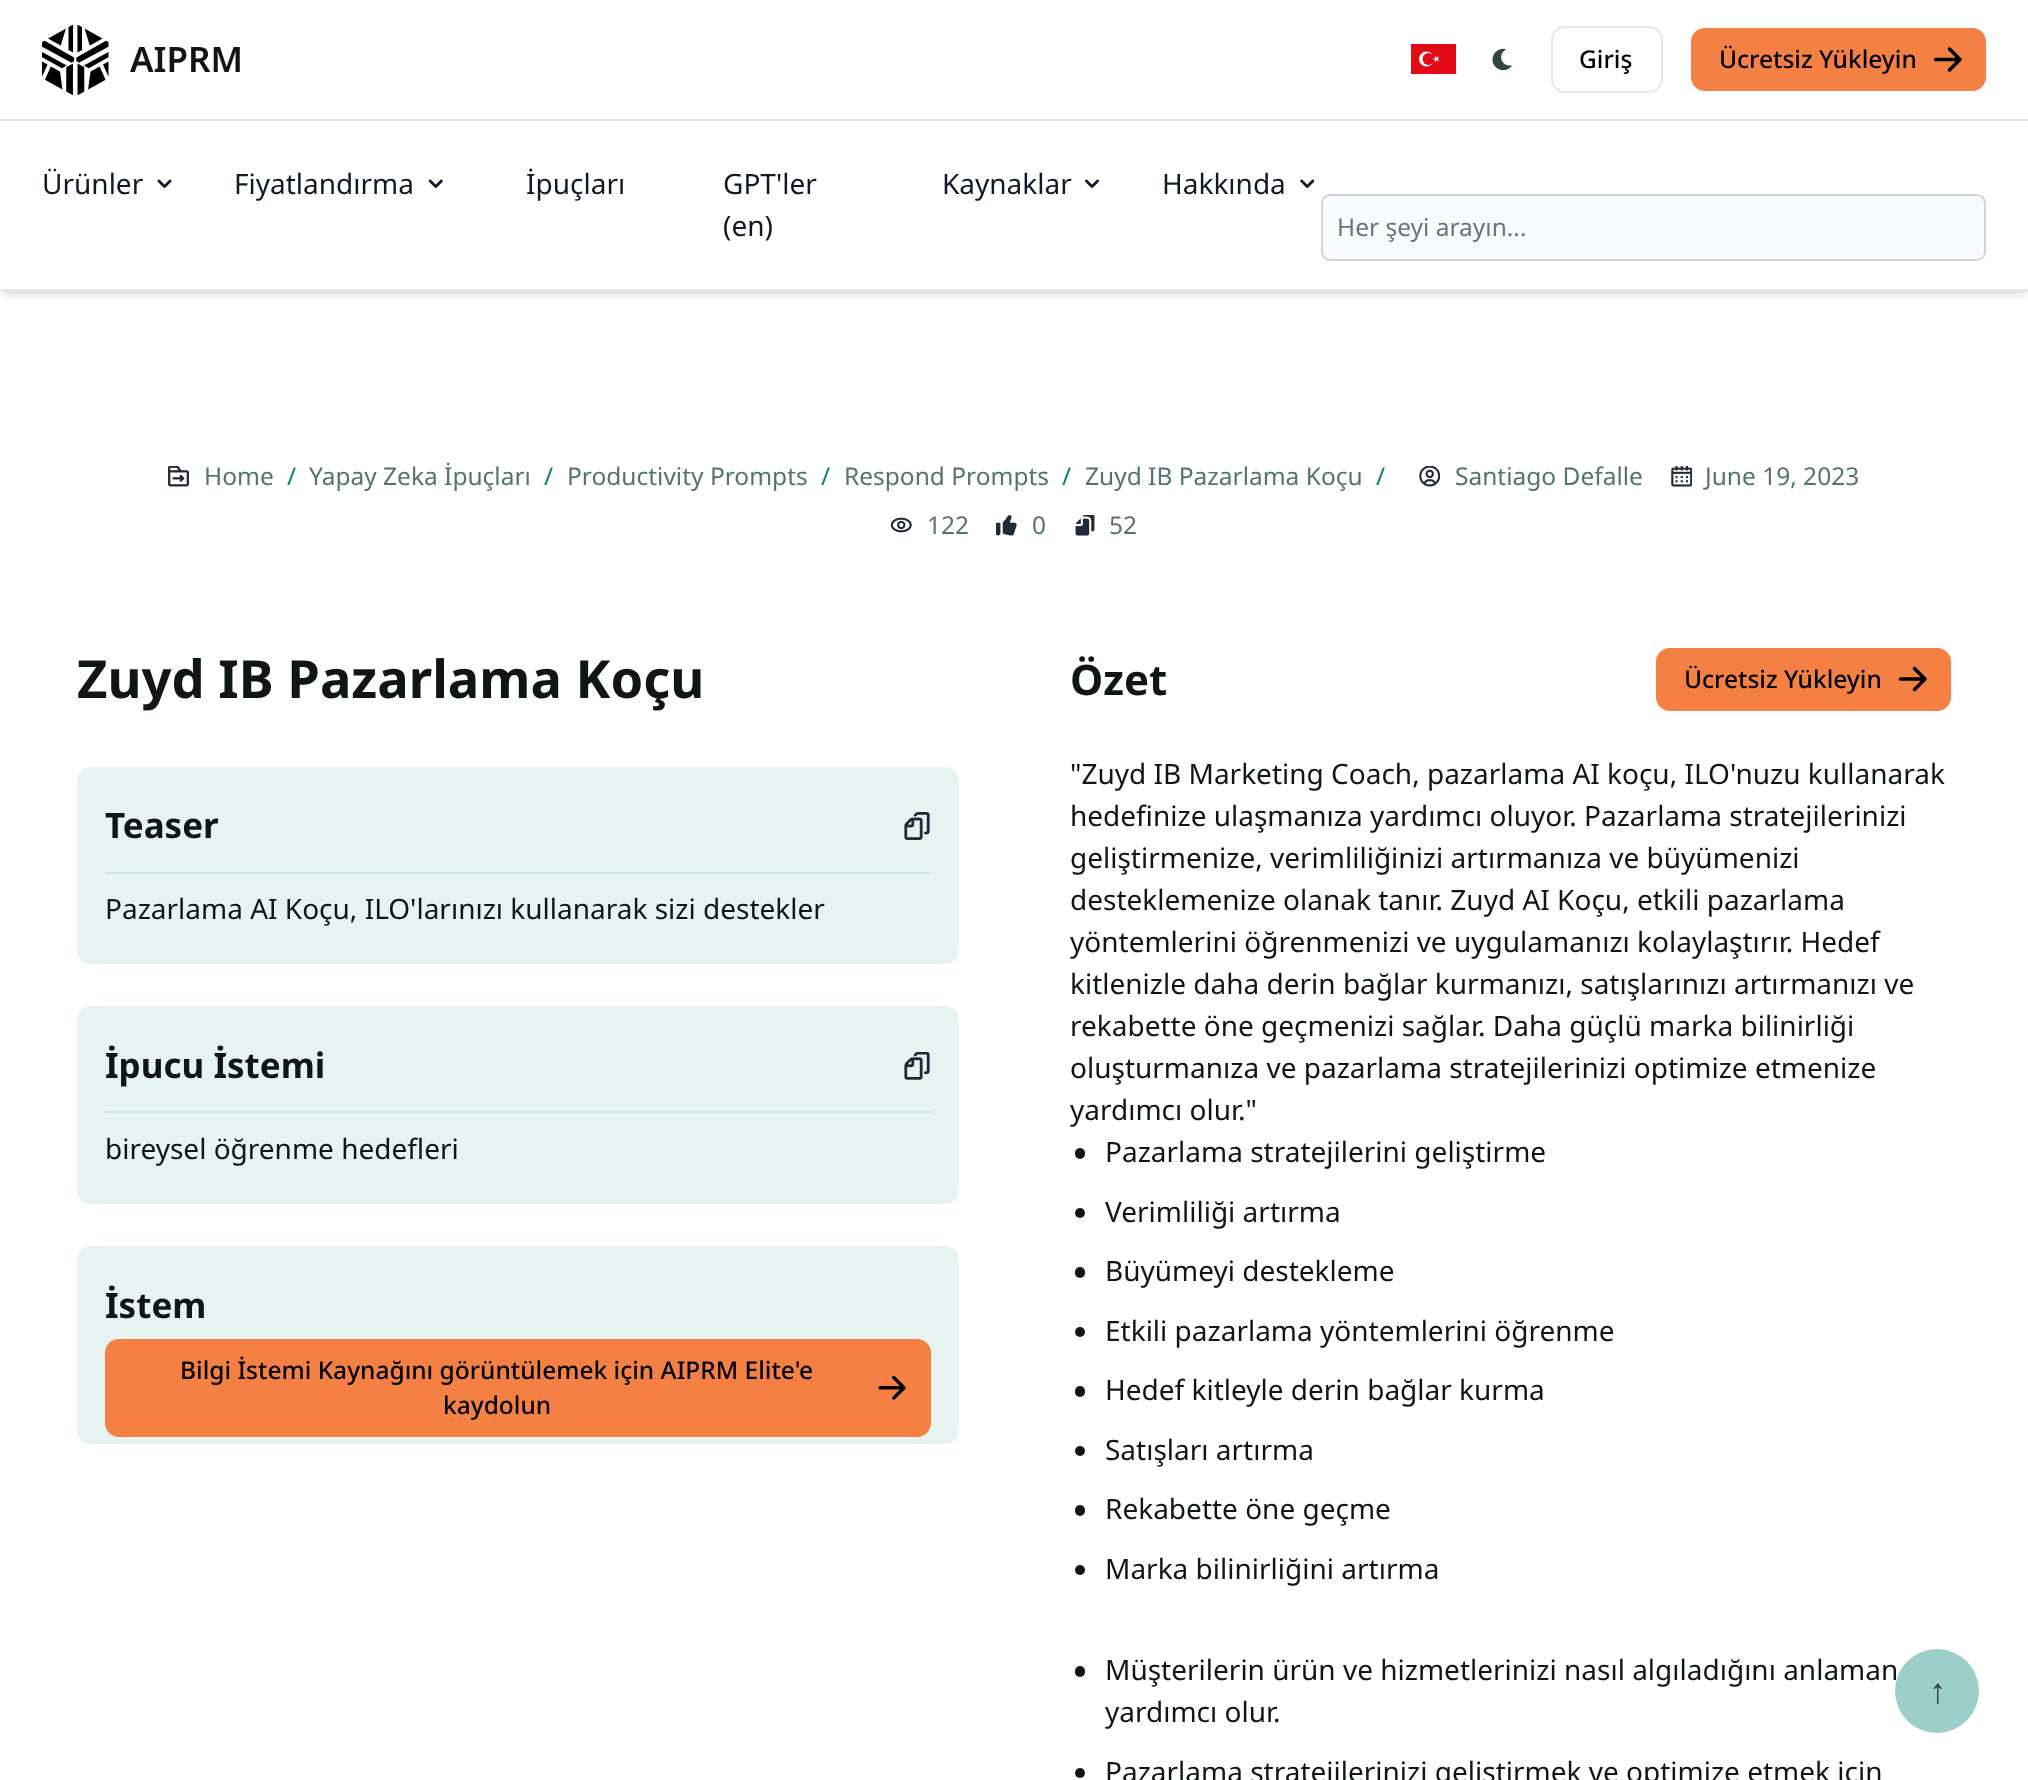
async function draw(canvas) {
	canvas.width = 2028;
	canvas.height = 1780;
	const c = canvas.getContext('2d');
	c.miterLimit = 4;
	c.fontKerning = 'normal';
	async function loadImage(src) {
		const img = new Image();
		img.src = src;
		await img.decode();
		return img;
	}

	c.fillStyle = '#fff';
	c.fillRect(0, 0, 2028, 1780);
	c.save();
	c.beginPath();
	c.rect(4, 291, 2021, 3);
	c.clip();
	c.fillStyle = '#0000001a';
	c.filter = 'blur(3.5px)';
	c.beginPath();
	c.rect(4, 7, 2021, 284);
	c.fill();
	c.filter = 'none';
	c.restore();
	c.save();
	c.beginPath();
	c.rect(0, 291, 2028, 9);
	c.clip();
	c.fillStyle = '#0000001a';
	c.filter = 'blur(5px)';
	c.beginPath();
	c.rect(2, 9, 2025, 287);
	c.fill();
	c.filter = 'none';
	c.restore();
	c.drawImage(await loadImage('img1.png'), 42, 25, 67, 70);
	c.font = '600 35px Noto Sans';
	c.fillStyle = '#101515';
	c.fillText('AIPRM', 130, 72);
	c.fillStyle = '#e30a17';
	c.fillRect(1411, 44, 45, 30);
	c.fillStyle = '#fff';
	c.beginPath();
	c.arc(1426.5, 59, 7.5, 0, 2 * Math.PI);
	c.fill();
	c.fillStyle = '#e30a17';
	c.beginPath();
	c.arc(1428.5, 59, 6, 0, 2 * Math.PI);
	c.fill();
	c.fillStyle = '#fff';
	c.beginPath();
	c.moveTo(1432.5, 59);
	c.lineTo(1439.5, 61);
	c.lineTo(1435, 55.5);
	c.lineTo(1435, 62.5);
	c.lineTo(1439.5, 56.5);
	c.closePath();
	c.fill();
	c.drawImage(await loadImage('img2.png'), 1492, 48, 20, 23);
	c.beginPath();
	c.roundRect(1552, 27, 110, 65, 13);
	c.strokeStyle = '#e5e7eb';
	c.lineWidth = 2;
	c.stroke();
	c.font = '500 24.5px Noto Sans';
	c.fillStyle = '#000';
	c.fillText('Giriş', 1579, 68);
	c.fillStyle = '#f58044';
	c.beginPath();
	c.roundRect(1691, 28, 295, 63, 14);
	c.fill();
	c.fillStyle = '#000';
	c.fillText('Ücretsiz Yükleyin', 1719, 68);
	c.drawImage(await loadImage('img3.png'), 1933, 47, 29, 25);
	c.fillStyle = '#e5e7eb';
	c.fillRect(0, 119, 2028, 2);
	c.fillRect(0, 289, 2028, 2);
	c.font = '28px Noto Sans';
	c.fillStyle = '#111827';
	c.fillText('Ürünler', 42, 194);
	c.drawImage(await loadImage('img4.png'), 157, 179, 15, 9);
	c.fillText('Fiyatlandırma', 234, 194);
	c.drawImage(await loadImage('img5.png'), 428, 179, 15, 9);
	for (const [text, x, y] of [
		['İpuçları', 526, 194],
		['GPT\'ler', 723, 194],
		['(en)', 723, 236],
		['Kaynaklar', 942, 194],
	]) {
		c.fillText(text, x, y);
	}
	c.drawImage(await loadImage('img6.png'), 1085, 179, 14, 9);
	c.fillText('Hakkında', 1162, 194);
	c.drawImage(await loadImage('img7.png'), 1300, 179, 15, 9);
	c.fillStyle = '#f9fafb';
	c.beginPath();
	c.roundRect(1322, 195, 663, 65, 8);
	c.fill();
	c.strokeStyle = '#d1d5db';
	c.stroke();
	c.font = '24.5px Noto Sans';
	c.fillStyle = '#6b7280';
	c.fillText('Her şeyi arayın...', 1337, 236);
	c.drawImage(await loadImage('img8.png'), 168, 466, 21, 21);
	c.fillStyle = '#54746f';
	c.fillText('Home', 204, 485);
	c.fillStyle = '#078677';
	c.fillText('/', 287, 485);
	c.fillStyle = '#54746f';
	c.fillText('Yapay Zeka İpuçları', 309, 485);
	c.fillStyle = '#078677';
	c.fillText('/', 544, 485);
	c.fillStyle = '#54746f';
	c.fillText('Productivity Prompts', 567, 485);
	c.fillStyle = '#078677';
	c.fillText('/', 821, 485);
	c.fillStyle = '#54746f';
	c.fillText('Respond Prompts', 844, 485);
	c.fillStyle = '#078677';
	c.fillText('/', 1062, 485);
	c.fillStyle = '#54746f';
	c.fillText('Zuyd IB Pazarlama Koçu', 1085, 485);
	c.fillStyle = '#078677';
	c.fillText('/', 1376, 485);
	c.drawImage(await loadImage('img9.png'), 1419, 466, 21, 21);
	c.fillStyle = '#54746f';
	c.fillText('Santiago Defalle', 1455, 485);
	c.drawImage(await loadImage('img10.png'), 1671, 466, 21, 21);
	c.fillText('June 19, 2023', 1705, 485);
	c.drawImage(await loadImage('img11.png'), 891, 517, 21, 16);
	c.fillText('122', 927, 534);
	c.drawImage(await loadImage('img12.png'), 996, 515, 21, 21);
	c.fillText('0', 1032, 534);
	c.drawImage(await loadImage('img13.png'), 1075, 515, 20, 21);
	c.fillText('52', 1109, 534);
	c.font = 'bold 52.5px Noto Sans';
	c.fillStyle = '#101515';
	c.fillText('Zuyd IB Pazarlama Koçu', 77, 698);
	c.fillStyle = '#e6f3f1';
	c.beginPath();
	c.roundRect(77, 767, 882, 197, 14);
	c.fill();
	c.fillStyle = '#cde7e4';
	c.fillRect(105, 872, 826, 2);
	c.font = 'bold 35px Noto Sans';
	c.fillStyle = '#101515';
	c.fillText('Teaser', 105, 838);
	c.drawImage(await loadImage('img14.png'), 904, 812, 26, 28);
	c.font = '28px Noto Sans';
	c.fillText('Pazarlama AI Koçu, ILO\'larınızı kullanarak sizi destekler', 105, 919);
	c.fillStyle = '#e6f3f1';
	c.beginPath();
	c.roundRect(77, 1006, 882, 198, 14);
	c.fill();
	c.fillStyle = '#cde7e4';
	c.fillRect(105, 1111, 826, 2);
	c.font = 'bold 35px Noto Sans';
	c.fillStyle = '#101515';
	c.fillText('İpucu İstemi', 105, 1078);
	c.drawImage(await loadImage('img15.png'), 904, 1052, 26, 28);
	c.font = '28px Noto Sans';
	c.fillText('bireysel öğrenme hedefleri', 105, 1159);
	c.fillStyle = '#e6f3f1';
	c.beginPath();
	c.roundRect(77, 1246, 882, 198, 14);
	c.fill();
	c.font = 'bold 35px Noto Sans';
	c.fillStyle = '#101515';
	c.fillText('İstem', 105, 1318);
	c.fillStyle = '#f58044';
	c.beginPath();
	c.roundRect(105, 1339, 826, 98, 14);
	c.fill();
	c.font = '500 24.5px Noto Sans';
	c.fillStyle = '#000';
	c.fillText('Bilgi İstemi Kaynağını görüntülemek için AIPRM Elite\'e', 180, 1379);
	c.drawImage(await loadImage('img16.png'), 878, 1375, 28, 25);
	c.fillText('kaydolun', 443, 1414);
	c.font = 'bold 42px Noto Sans';
	c.fillStyle = '#101515';
	c.fillText('Özet', 1070, 695);
	c.fillStyle = '#f58044';
	c.beginPath();
	c.roundRect(1656, 648, 295, 63, 14);
	c.fill();
	c.font = '500 24.5px Noto Sans';
	c.fillStyle = '#000';
	c.fillText('Ücretsiz Yükleyin', 1684, 688);
	c.drawImage(await loadImage('img17.png'), 1898, 666, 29, 26);
	c.font = '28px Noto Sans';
	c.fillStyle = '#101515';
	for (const [text, x, y] of [
		['"Zuyd IB Marketing Coach, pazarlama AI koçu, ILO\'nuzu kullanarak', 1070, 784],
		['hedefinize ulaşmanıza yardımcı oluyor. Pazarlama stratejilerinizi', 1070, 826],
		['geliştirmenize, verimliliğinizi artırmanıza ve büyümenizi', 1070, 868],
		['desteklemenize olanak tanır. Zuyd AI Koçu, etkili pazarlama', 1070, 910],
		['yöntemlerini öğrenmenizi ve uygulamanızı kolaylaştırır. Hedef', 1070, 952],
		['kitlenizle daha derin bağlar kurmanızı, satışlarınızı artırmanızı ve', 1070, 994],
		['rekabette öne geçmenizi sağlar. Daha güçlü marka bilinirliği', 1070, 1036],
		['oluşturmanıza ve pazarlama stratejilerinizi optimize etmenize', 1070, 1078],
		['yardımcı olur."', 1070, 1120],
	]) {
		c.fillText(text, x, y);
	}
	c.beginPath();
	c.roundRect(1075, 1148, 10, 11, 5);
	c.fill();
	c.fillText('Pazarlama stratejilerini geliştirme', 1105, 1162);
	c.beginPath();
	c.arc(1080, 1213, 5, 0, 2 * Math.PI);
	c.fill();
	c.fillText('Verimliliği artırma', 1105, 1222);
	c.beginPath();
	c.roundRect(1075, 1267, 10, 11, 5);
	c.fill();
	c.fillText('Büyümeyi destekleme', 1105, 1281);
	c.beginPath();
	c.arc(1080, 1332, 5, 0, 2 * Math.PI);
	c.fill();
	c.fillText('Etkili pazarlama yöntemlerini öğrenme', 1105, 1341);
	c.beginPath();
	c.roundRect(1075, 1386, 10, 11, 5);
	c.fill();
	c.fillText('Hedef kitleyle derin bağlar kurma', 1105, 1400);
	c.beginPath();
	c.arc(1080, 1451, 5, 0, 2 * Math.PI);
	c.fill();
	c.fillText('Satışları artırma', 1105, 1460);
	c.beginPath();
	c.roundRect(1075, 1505, 10, 11, 5);
	c.fill();
	c.fillText('Rekabette öne geçme', 1105, 1519);
	c.beginPath();
	c.arc(1080, 1570, 5, 0, 2 * Math.PI);
	c.fill();
	c.fillText('Marka bilinirliğini artırma', 1105, 1579);
	c.beginPath();
	c.roundRect(1075, 1666, 10, 11, 5);
	c.fill();
	c.fillText('Müşterilerin ürün ve hizmetlerinizi nasıl algıladığını anlaman', 1105, 1680);
	c.fillText('yardımcı olur.', 1105, 1722);
	c.beginPath();
	c.arc(1080, 1773, 5, 0, 2 * Math.PI);
	c.fill();
	c.fillText('Pazarlama stratejilerinizi geliştirmek ve optimize etmek için', 1105, 1782);
	c.fillStyle = '#9ccfc9';
	c.beginPath();
	c.arc(1937, 1691, 42, 0, 2 * Math.PI);
	c.fill();
	c.font = '35px Liberation Sans';
	c.fillStyle = '#324542';
	c.fillText('↑', 1929, 1703);
}

draw(document.querySelector('canvas'));
